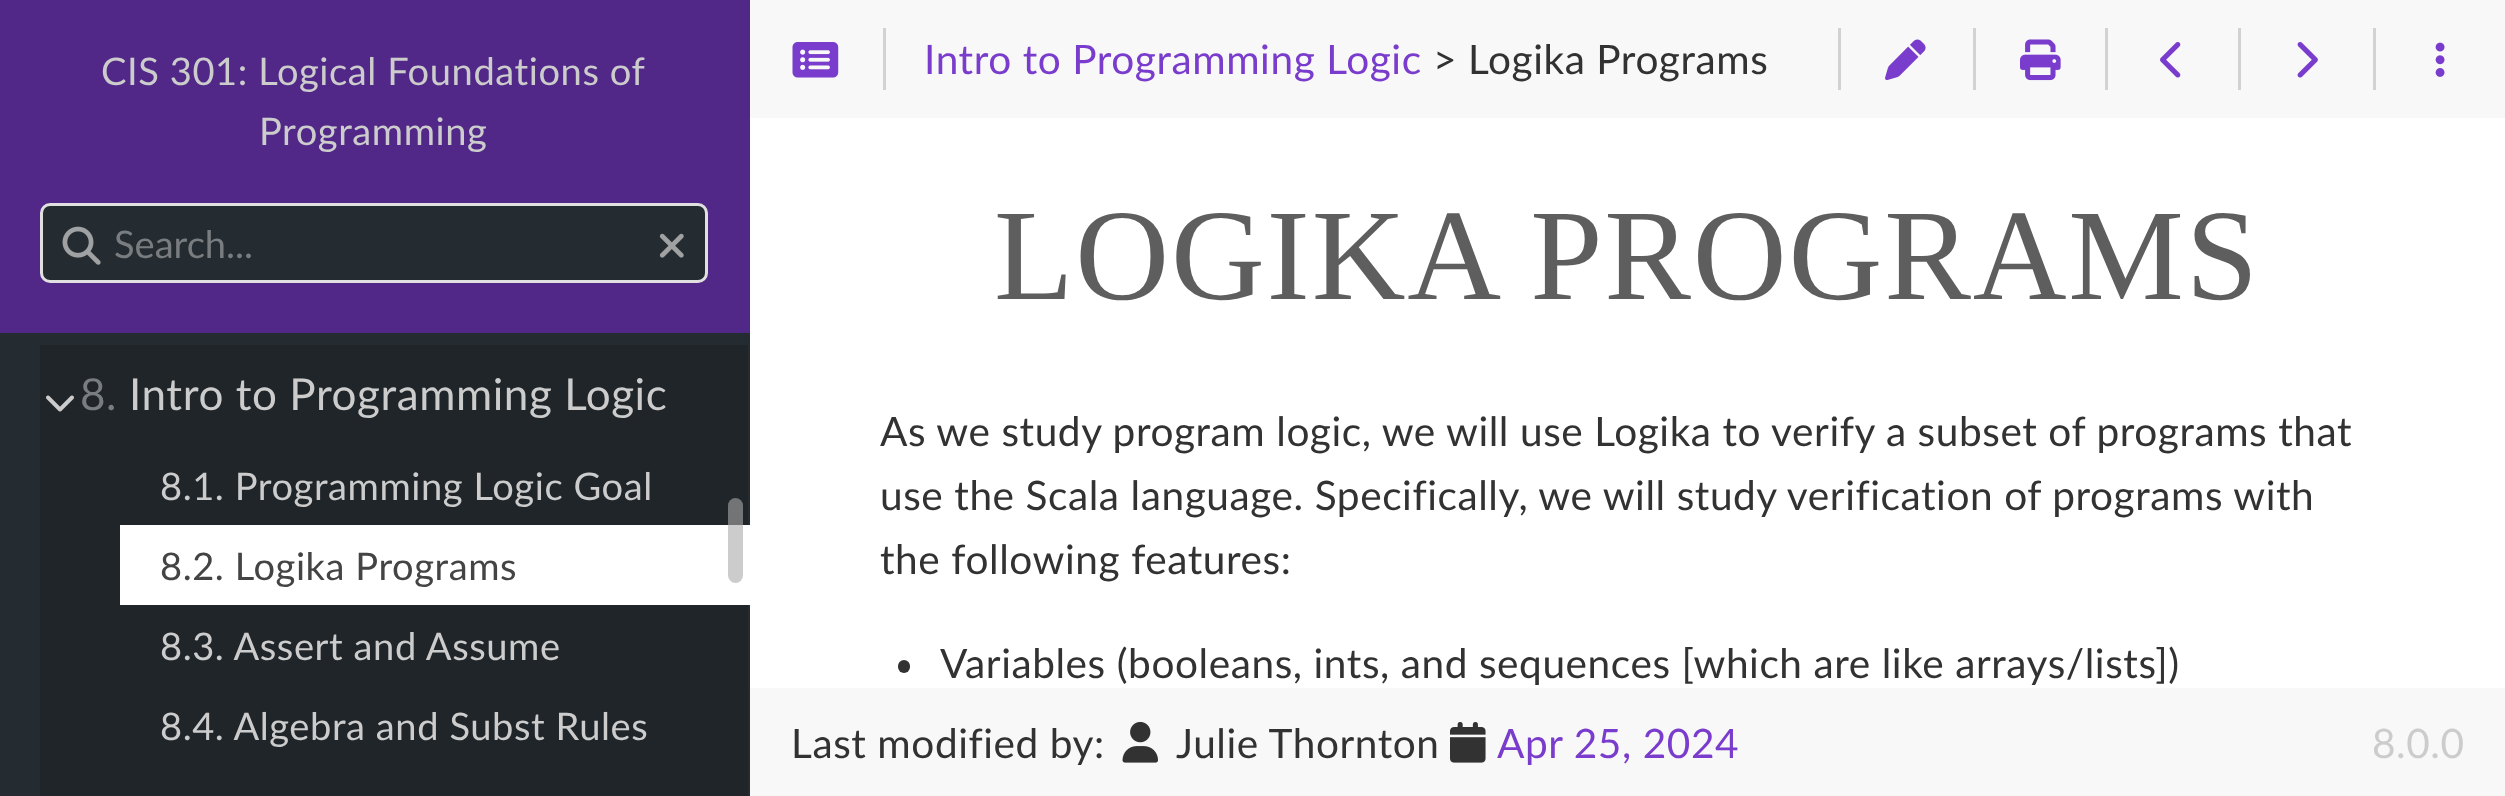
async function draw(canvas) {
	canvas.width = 2505;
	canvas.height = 796;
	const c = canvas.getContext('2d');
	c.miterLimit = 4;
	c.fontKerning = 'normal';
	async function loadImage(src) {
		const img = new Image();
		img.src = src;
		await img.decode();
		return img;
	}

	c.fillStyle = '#fff';
	c.fillRect(0, 0, 2505, 796);
	c.fillStyle = '#252c31';
	c.fillRect(0, 333, 750, 463);
	c.fillStyle = '#512888';
	c.fillRect(0, 0, 750, 333);
	c.letterSpacing = '0.57px';
	c.font = '38.1px Lato';
	c.fillStyle = '#ccc';
	c.fillText('CIS 301: Logical Foundations of', 101, 85);
	c.fillText('Programming', 259, 145);
	c.fillStyle = '#252c31';
	c.beginPath();
	c.roundRect(41.5, 204.5, 665, 77, 8.5);
	c.fill();
	c.strokeStyle = '#e0e0e0';
	c.lineWidth = 3;
	c.stroke();
	c.drawImage(await loadImage('img1.png'), 62, 226, 39, 39);
	c.letterSpacing = '0px';
	c.fillStyle = '#797d80';
	c.fillText('Search...', 114, 258);
	c.drawImage(await loadImage('img2.png'), 659, 233, 25, 25);
	c.fillStyle = '#1f2529';
	c.fillRect(40, 345, 708, 451);
	c.drawImage(await loadImage('img3.png'), 46, 395, 28, 17);
	c.letterSpacing = '0.57px';
	c.font = '44px Lato';
	c.fillStyle = '#797d80';
	c.fillText('8.', 80, 410);
	c.fillStyle = '#ccc';
	c.fillText('Intro to Programming Logic', 129, 410);
	c.font = '38.1px Lato';
	c.fillText('8.1. Programming Logic Goal', 160, 500);
	c.fillStyle = '#fff';
	c.fillRect(120, 525, 630, 80);
	c.fillStyle = '#444';
	c.fillText('8.2. Logika Programs', 160, 580);
	c.fillStyle = '#ccc';
	c.fillText('8.3. Assert and Assume', 160, 660);
	c.fillText('8.4. Algebra and Subst Rules', 160, 740);
	c.fillStyle = '#aaaaaa99';
	c.beginPath();
	c.roundRect(728, 498, 15, 85, 7.5);
	c.fill();
	c.fillStyle = '#f8f8f8';
	c.fillRect(750, 0, 1755, 118);
	c.fillStyle = '#d2d2d2';
	c.fillRect(883, 28, 3, 62);
	c.drawImage(await loadImage('img4.png'), 792, 42, 47, 36);
	c.font = '40.6px Lato';
	c.fillStyle = '#793ccc';
	c.fillText('Intro to Programming Logic', 924, 74);
	c.fillStyle = '#323232';
	c.fillText('> Logika Programs', 1433, 74);
	c.fillStyle = '#d2d2d2';
	c.fillRect(1838, 28, 3, 62);
	c.drawImage(await loadImage('img5.png'), 1885, 39, 41, 41);
	c.fillRect(1973, 28, 3, 62);
	c.drawImage(await loadImage('img6.png'), 2020, 39, 41, 42);
	c.fillRect(2105, 28, 3, 62);
	c.drawImage(await loadImage('img7.png'), 2160, 42, 21, 36);
	c.fillRect(2238, 28, 3, 62);
	c.drawImage(await loadImage('img8.png'), 2297, 42, 21, 36);
	c.fillRect(2373, 28, 3, 62);
	c.drawImage(await loadImage('img9.png'), 2435, 42, 10, 35);
	c.letterSpacing = '1.8px';
	c.font = '130px Liberation Serif';
	c.fillStyle = '#5e5e5e';
	c.fillText('LOGIKA PROGRAMS', 994, 299);
	c.letterSpacing = '0.57px';
	c.font = '40.6px Lato';
	c.fillStyle = '#323232';
	for (const [text, x, y] of [
		['As we study program logic, we will use Logika to verify a subset of programs that', 880, 446],
		['use the Scala language. Specifically, we will study verification of programs with', 880, 510],
		['the following features:', 880, 574],
	]) {
		c.fillText(text, x, y);
	}
	c.beginPath();
	c.roundRect(898, 660, 12, 13, 6);
	c.fill();
	c.fillText('Variables (booleans, ints, and sequences [which are like arrays/lists])', 940, 678);
	c.fillStyle = '#f8f8f8';
	c.fillRect(750, 688, 1755, 108);
	c.fillStyle = '#323232';
	c.fillText('Last modified by:', 791, 758);
	c.drawImage(await loadImage('img10.png'), 1122, 721, 36, 42);
	c.fillText('Julie Thornton', 1176, 758);
	c.drawImage(await loadImage('img11.png'), 1450, 722, 36, 41);
	c.fillStyle = '#793ccc';
	c.fillText('Apr 25, 2024', 1497, 758);
	c.fillStyle = '#ccc';
	c.fillText('8.0.0', 2372, 758);
}

draw(document.querySelector('canvas'));
